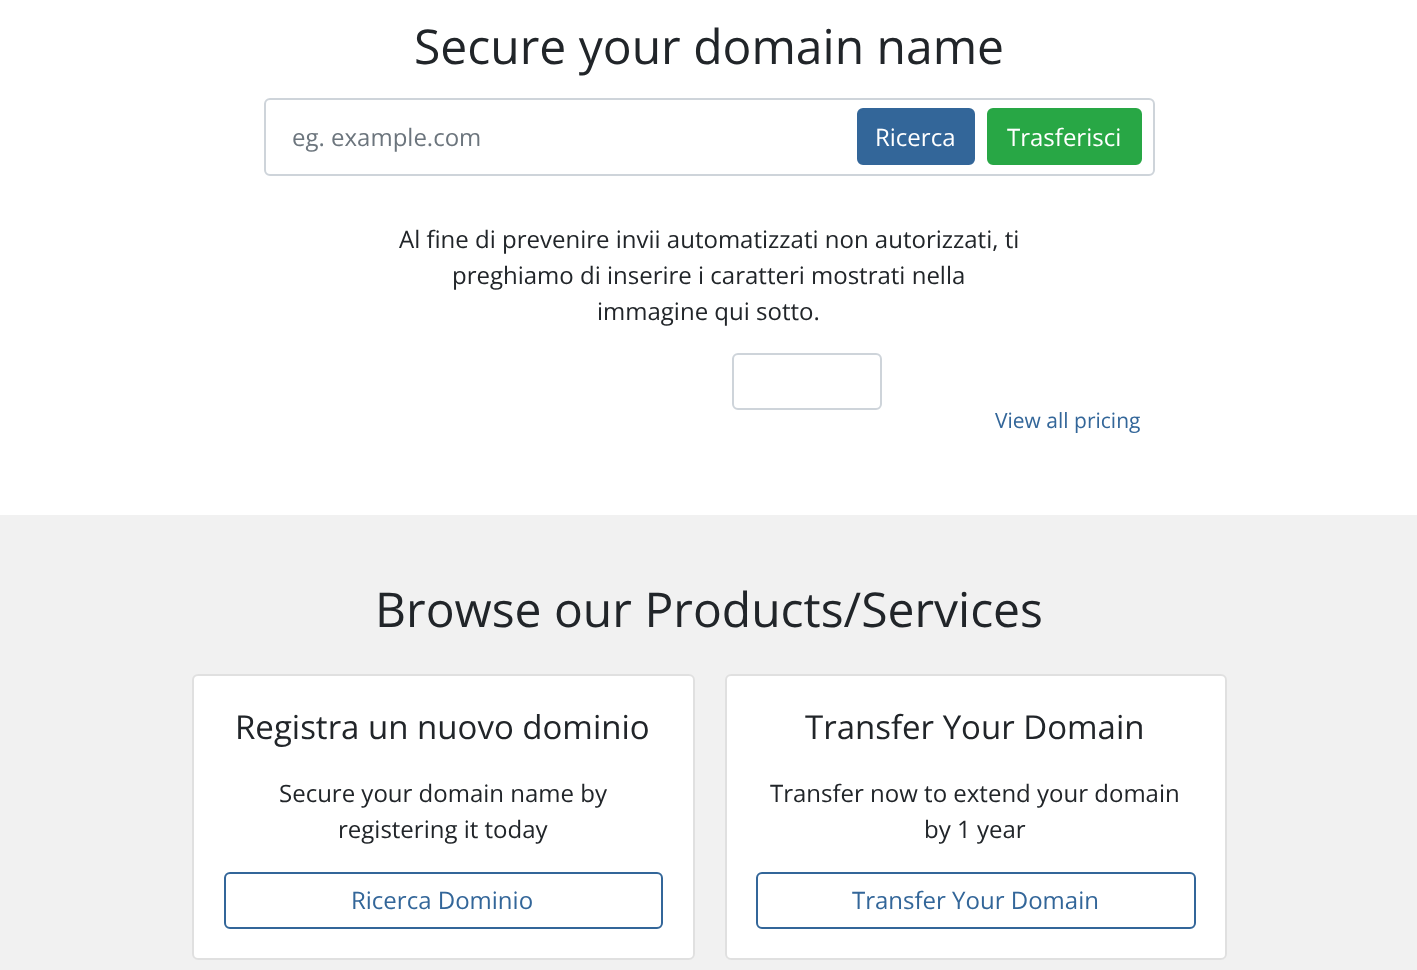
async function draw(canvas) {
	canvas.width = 1417;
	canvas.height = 970;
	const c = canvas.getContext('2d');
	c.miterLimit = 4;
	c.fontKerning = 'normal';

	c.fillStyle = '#f1f1f1';
	c.fillRect(0, 0, 1417, 970);
	c.fillStyle = '#fff';
	c.fillRect(0, 0, 1417, 515);
	c.font = '48px Open Sans';
	c.fillStyle = '#212529';
	c.fillText('Secure your domain name', 414, 64);
	c.beginPath();
	c.roundRect(265, 99, 889, 76, 5);
	c.strokeStyle = '#ced4da';
	c.lineWidth = 2;
	c.stroke();
	c.font = '24px Open Sans';
	c.fillStyle = '#6c757d';
	c.fillText('eg. example.com', 292, 146);
	c.fillStyle = '#369';
	c.beginPath();
	c.roundRect(858, 109, 116, 55, 5);
	c.fill();
	c.strokeStyle = '#369';
	c.stroke();
	c.fillStyle = '#fff';
	c.fillText('Ricerca', 875, 146);
	c.fillStyle = '#28a745';
	c.beginPath();
	c.roundRect(988, 109, 153, 55, 5);
	c.fill();
	c.strokeStyle = '#28a745';
	c.stroke();
	c.fillStyle = '#fff';
	c.fillText('Trasferisci', 1007, 146);
	c.fillStyle = '#212529';
	for (const [text, x, y] of [
		['Al fine di prevenire invii automatizzati non autorizzati, ti', 399, 248],
		['preghiamo di inserire i caratteri mostrati nella', 452, 284],
		['immagine qui sotto.', 597, 320],
	]) {
		c.fillText(text, x, y);
	}
	c.beginPath();
	c.roundRect(733, 354, 148, 55, 5);
	c.strokeStyle = '#ced4da';
	c.stroke();
	c.font = '21px Open Sans';
	c.fillStyle = '#369';
	c.fillText('View all pricing', 995, 428);
	c.font = '48px Open Sans';
	c.fillStyle = '#212529';
	c.fillText('Browse our Products/Services', 375, 627);
	c.fillStyle = '#fff';
	c.beginPath();
	c.roundRect(192, 674, 503, 286, 6);
	c.fill();
	c.beginPath();
	c.roundRect(193, 675, 501, 284, 5);
	c.strokeStyle = '#0000001f';
	c.stroke();
	c.font = '33px Open Sans';
	c.fillStyle = '#212529';
	c.fillText('Registra un nuovo dominio', 235, 739);
	c.font = '24px Open Sans';
	c.fillText('Secure your domain name by', 279, 802);
	c.fillText('registering it today', 338, 838);
	c.beginPath();
	c.roundRect(225, 873, 437, 55, 5);
	c.strokeStyle = '#369';
	c.stroke();
	c.fillStyle = '#369';
	c.fillText('Ricerca Dominio', 351, 909);
	c.fillStyle = '#fff';
	c.beginPath();
	c.roundRect(725, 674, 502, 286, 6);
	c.fill();
	c.beginPath();
	c.roundRect(726, 675, 500, 284, 5);
	c.strokeStyle = '#0000001f';
	c.stroke();
	c.font = '33px Open Sans';
	c.fillStyle = '#212529';
	c.fillText('Transfer Your Domain', 805, 739);
	c.font = '24px Open Sans';
	c.fillText('Transfer now to extend your domain', 770, 802);
	c.fillText('by 1 year', 924, 838);
	c.beginPath();
	c.roundRect(757, 873, 438, 55, 5);
	c.strokeStyle = '#369';
	c.stroke();
	c.fillStyle = '#369';
	c.fillText('Transfer Your Domain', 852, 909);
}

draw(document.querySelector('canvas'));
